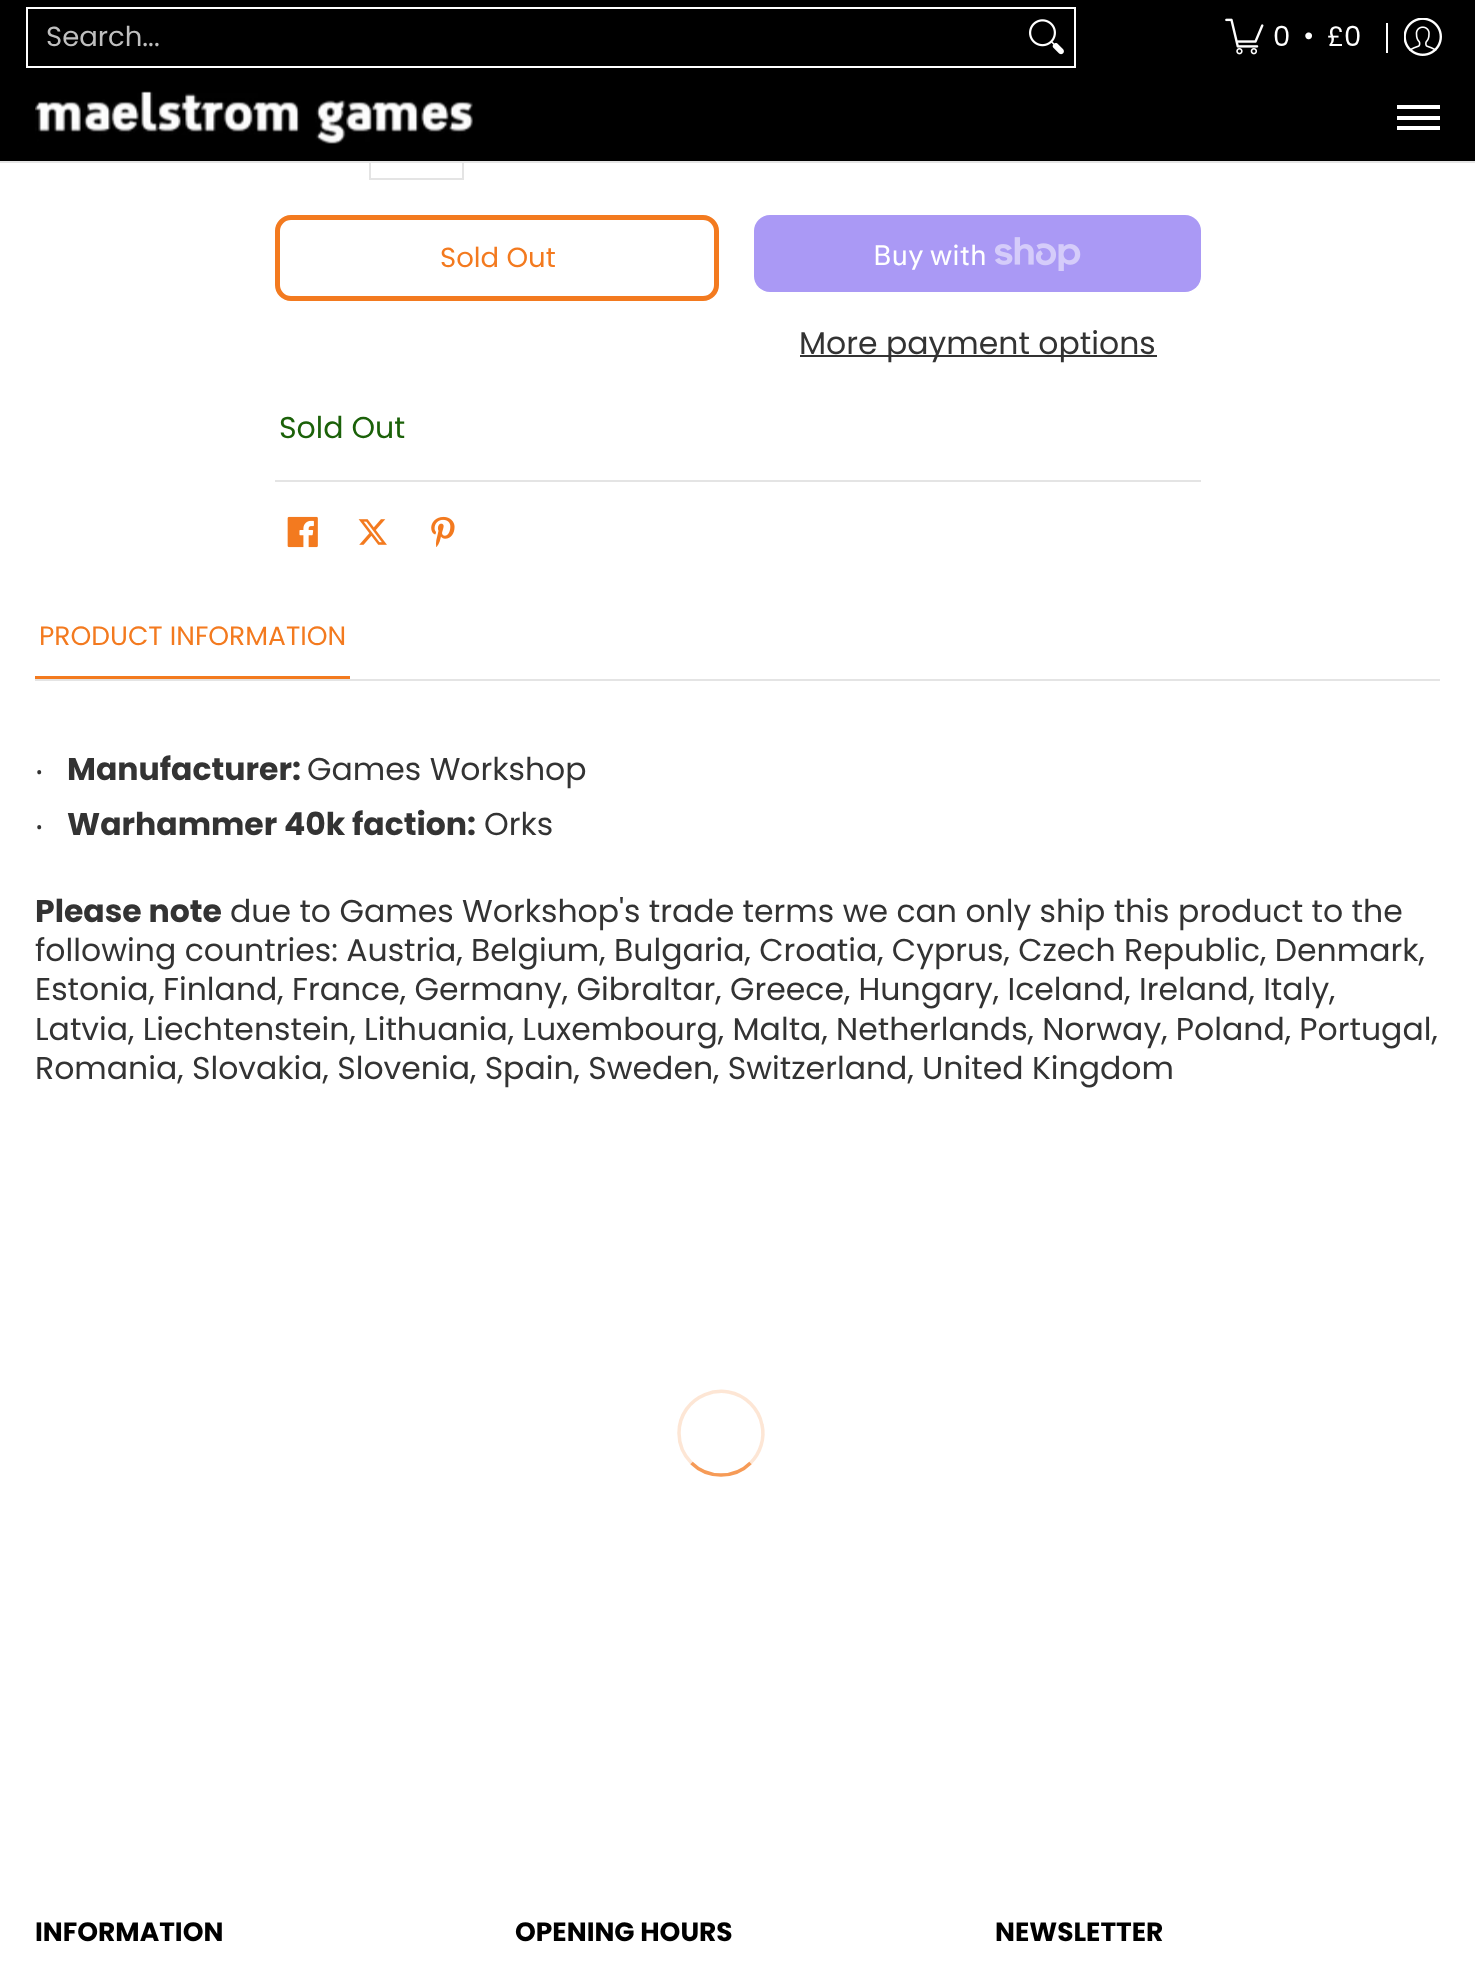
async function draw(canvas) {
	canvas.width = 1475;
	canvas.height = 1967;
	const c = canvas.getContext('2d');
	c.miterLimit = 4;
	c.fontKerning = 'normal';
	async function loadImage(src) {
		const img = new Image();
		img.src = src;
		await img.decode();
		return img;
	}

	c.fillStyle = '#fff';
	c.fillRect(0, 0, 1475, 1967);
	c.strokeStyle = '#e4e4e4';
	c.lineWidth = 2;
	c.strokeRect(370, 111, 93, 68);
	c.fillStyle = '#000';
	c.fillRect(0, 0, 1475, 161);
	c.strokeStyle = '#fff';
	c.strokeRect(27, 8, 1048, 59);
	c.font = '27.5px Poppins';
	c.fillStyle = '#bfbfbf';
	c.fillText('Search...', 46, 46);
	c.drawImage(await loadImage('img1.png'), 1029, 19, 35, 36);
	c.drawImage(await loadImage('img2.png'), 1225, 18, 39, 37);
	c.fillStyle = '#fff';
	for (const [text, x, y] of [
		['0', 1273, 46],
		['•', 1303, 45],
		['£0', 1327, 46],
	]) {
		c.fillText(text, x, y);
	}
	c.fillRect(1386, 23, 2, 30);
	c.drawImage(await loadImage('img3.png'), 1404, 18, 38, 38);
	c.fillStyle = '#e4e4e4';
	c.fillRect(0, 161, 1475, 2);
	c.drawImage(await loadImage('img4.png'), 35, 91, 438, 53);
	for (const [x, y, w, h, color] of [
		[1397, 105, 43, 4, '#fff'],
		[1397, 126, 43, 4, '#fff'],
		[1397, 116, 43, 4, '#fff'],
	]) {
		c.fillStyle = color;
		c.fillRect(x, y, w, h);
	}
	c.beginPath();
	c.roundRect(277.5, 217.5, 439, 81, 13.5);
	c.strokeStyle = '#f37a1f';
	c.lineWidth = 5;
	c.stroke();
	c.fillStyle = '#f37a1f';
	c.fillText('Sold Out', 440, 267);
	c.fillStyle = '#aa99f5';
	c.beginPath();
	c.roundRect(754, 215, 447, 77, 16);
	c.fill();
	c.font = '28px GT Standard';
	c.fillStyle = '#fff';
	c.fillText('Buy with', 873, 265);
	c.drawImage(await loadImage('img5.png'), 995, 237, 86, 34);
	c.fillStyle = '#333';
	c.fillRect(800, 355, 357, 2);
	c.font = '31.5px Poppins';
	c.fillText('More payment options', 799, 354);
	c.fillStyle = '#e4e4e4';
	c.fillRect(275, 480, 926, 2);
	c.font = '30px Poppins';
	c.fillStyle = '#1b6109';
	c.fillText('Sold Out', 279, 438);
	c.drawImage(await loadImage('img6.png'), 287, 516, 31, 32);
	c.drawImage(await loadImage('img7.png'), 358, 519, 29, 26);
	c.drawImage(await loadImage('img8.png'), 431, 516, 24, 31);
	c.fillStyle = '#f37a1f';
	c.fillRect(35, 676, 315, 3);
	c.font = '26.5px Poppins';
	c.fillText('PRODUCT INFORMATION', 39, 645);
	c.fillStyle = '#e4e4e4';
	c.fillRect(35, 679, 1405, 2);
	c.font = '31.5px Noto Sans';
	c.fillStyle = '#333';
	c.fillText('‧', 35, 780);
	c.font = 'bold 31.5px Poppins';
	c.fillText('Manufacturer:', 67, 780);
	c.font = '31.5px Poppins';
	c.fillText('Games Workshop', 307, 780);
	c.font = '31.5px Noto Sans';
	c.fillText('‧', 35, 835);
	c.font = 'bold 31.5px Poppins';
	c.fillText('Warhammer 40k faction:', 67, 835);
	c.font = '31.5px Poppins';
	c.fillText('Orks', 484, 835);
	c.font = 'bold 31.5px Poppins';
	c.fillText('Please note', 35, 922);
	c.font = '31.5px Poppins';
	for (const [text, x, y] of [
		['due to Games Workshop\'s trade terms we can only ship this product to the', 230, 922],
		['following countries: Austria, Belgium, Bulgaria, Croatia, Cyprus, Czech Republic, Denmark,', 35, 961],
		['Estonia, Finland, France, Germany, Gibraltar, Greece, Hungary, Iceland, Ireland, Italy,', 35, 1000],
		['Latvia, Liechtenstein, Lithuania, Luxembourg, Malta, Netherlands, Norway, Poland, Portugal,', 35, 1040],
		['Romania, Slovakia, Slovenia, Spain, Sweden, Switzerland, United Kingdom', 35, 1079],
	]) {
		c.fillText(text, x, y);
	}
	c.beginPath();
	c.moveTo(750.5, 1463);
	c.bezierCurveTo(734.5, 1479, 707.5, 1479, 691.5, 1463);
	c.strokeStyle = '#f69b57';
	c.lineWidth = 3.5;
	c.stroke();
	c.beginPath();
	c.moveTo(691.5, 1463);
	c.bezierCurveTo(683.5, 1455, 679, 1444.5, 679, 1433);
	c.bezierCurveTo(679, 1396, 724.5, 1377.5, 750.5, 1403.5);
	c.bezierCurveTo(756.5, 1409.5, 760.5, 1417, 762, 1425);
	c.bezierCurveTo(765, 1438.5, 760.5, 1453, 750.5, 1463);
	c.strokeStyle = '#f69b5740';
	c.stroke();
	c.font = 'bold 26.5px Poppins';
	c.fillStyle = '#000';
	for (const [text, x, y] of [
		['INFORMATION', 35, 1941],
		['OPENING HOURS', 515, 1941],
		['NEWSLETTER', 995, 1941],
	]) {
		c.fillText(text, x, y);
	}
}

draw(document.querySelector('canvas'));
